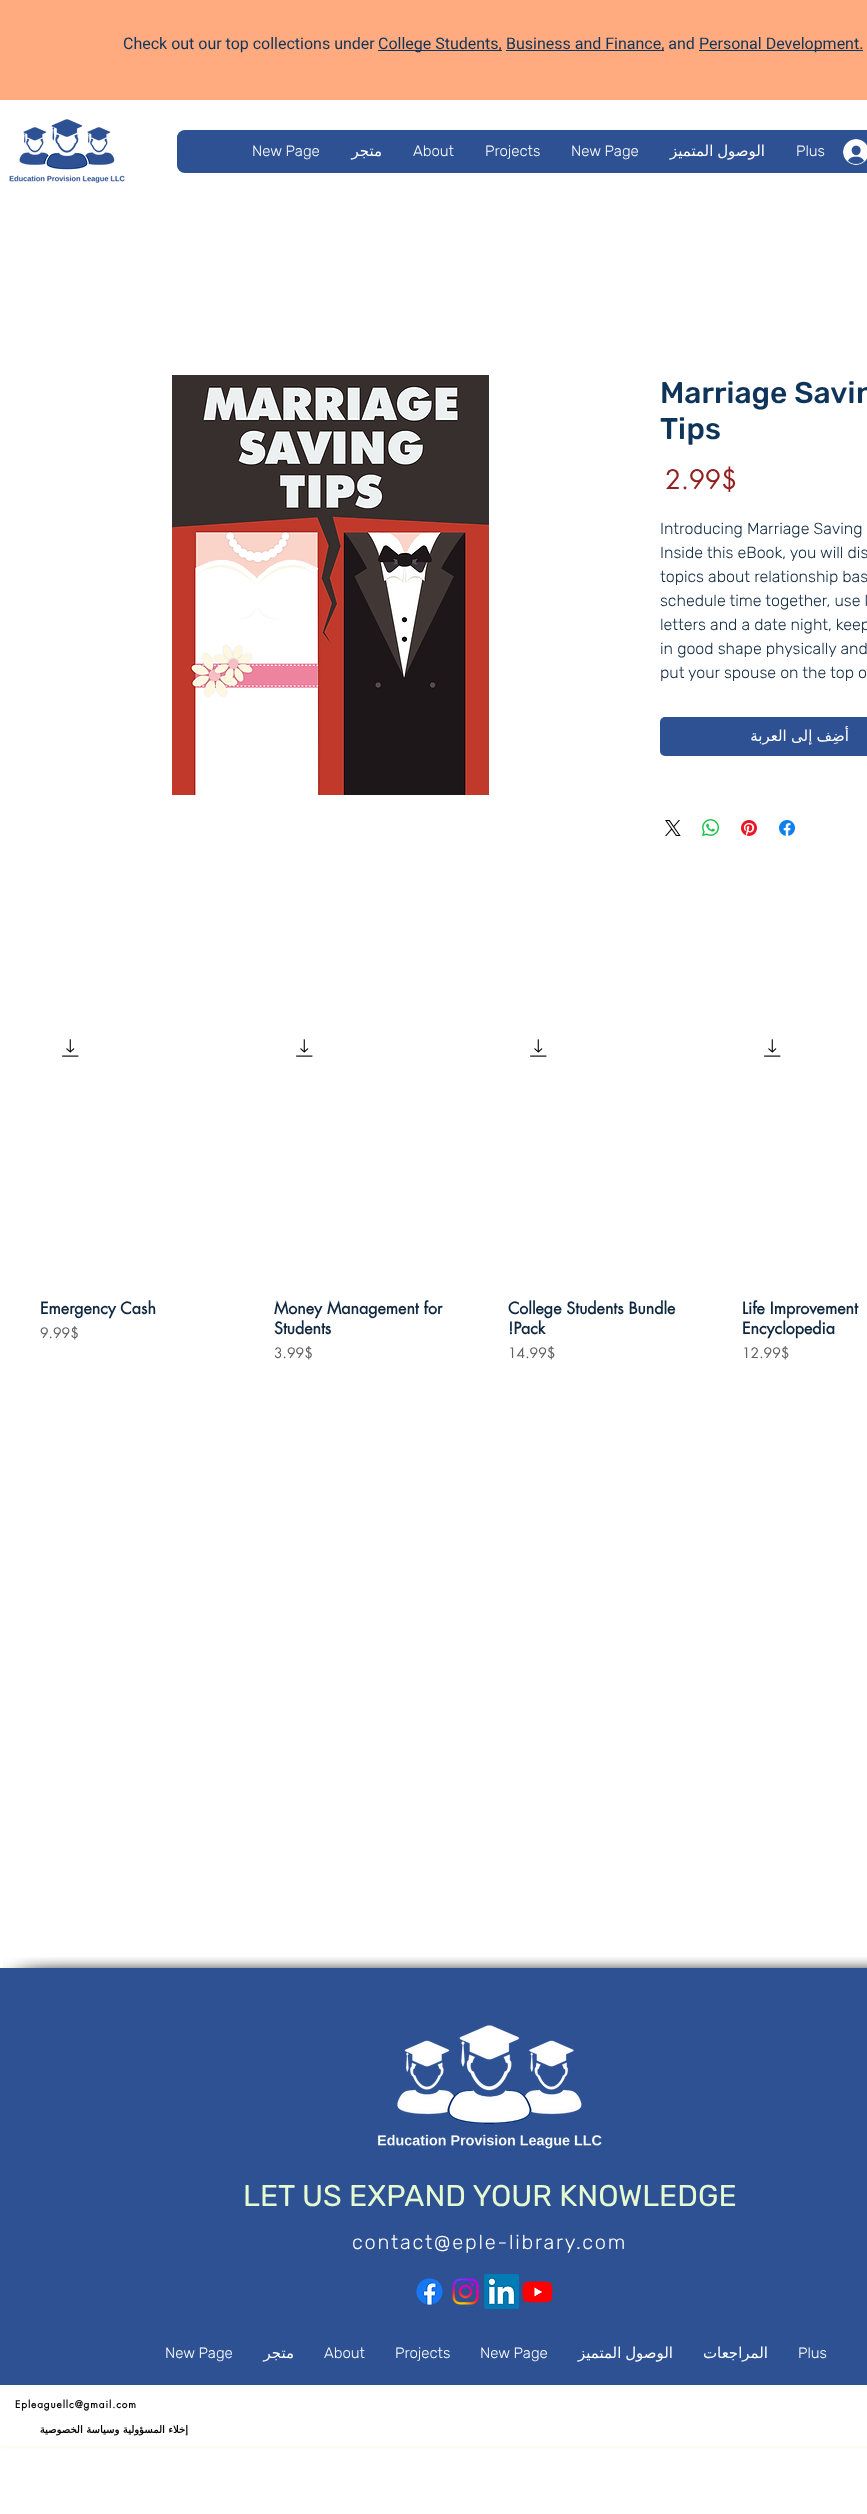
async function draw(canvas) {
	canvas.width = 867;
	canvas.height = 2514;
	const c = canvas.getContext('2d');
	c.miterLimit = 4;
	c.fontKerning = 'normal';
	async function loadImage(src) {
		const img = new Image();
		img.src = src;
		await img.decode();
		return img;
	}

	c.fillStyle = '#fff';
	c.fillRect(0, 0, 867, 2514);
	c.fillStyle = '#ffab7f';
	c.fillRect(0, 0, 867, 100);
	c.font = '16px Roboto';
	c.fillStyle = '#0e345a';
	c.fillText('Check out our top collections under', 123, 49);
	c.fillRect(378, 50, 124, 1);
	c.fillText('College Students,', 378, 49);
	c.fillRect(506, 50, 158, 1);
	c.fillText('Business and Finance, and', 506, 49);
	c.fillRect(699, 50, 164, 1);
	c.fillText('Personal Development.', 699, 49);
	c.drawImage(await loadImage('img1.png'), 9, 119, 116, 64);
	c.fillStyle = '#2d5193';
	c.beginPath();
	c.roundRect(177, 130, 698, 43, 8);
	c.fill();
	c.beginPath();
	c.roundRect(177, 131, 663, 41, 8);
	c.fill();
	c.font = '300 15px Rubik';
	c.fillStyle = '#fff';
	c.fillText('New Page', 252, 156);
	c.direction = 'rtl';
	c.font = '15px DejaVu Sans';
	c.fillText('متجر', 382, 156);
	c.direction = 'ltr';
	c.font = '300 15px Rubik';
	for (const [text, x, y] of [
		['About', 413, 156],
		['Projects', 485, 156],
		['New Page', 571, 156],
	]) {
		c.fillText(text, x, y);
	}
	c.wordSpacing = '-1px';
	c.direction = 'rtl';
	c.font = '15px DejaVu Sans';
	c.fillText('الوصول المتميز', 765, 156);
	c.wordSpacing = '0px';
	c.direction = 'ltr';
	c.font = '300 15px Rubik';
	c.fillText('Plus', 796, 156);
	c.drawImage(await loadImage('img2.png'), 843, 139, 24, 26);
	c.drawImage(await loadImage('img3.png'), 172, 375, 317, 420);
	c.font = '500 30px Rubik';
	c.fillStyle = '#0e345a';
	c.fillText('Marriage Savin', 660, 403);
	c.fillText('Tips', 660, 439);
	c.font = '26px futura';
	c.fillStyle = '#932123';
	c.fillText('2.99$', 665, 489);
	c.font = '300 16px Rubik';
	c.fillStyle = '#0f2840';
	for (const [text, x, y] of [
		['Introducing Marriage Saving', 660, 534],
		['Inside this eBook, you will dis', 660, 558],
		['topics about relationship bas', 660, 582],
		['schedule time together, use l', 660, 606],
		['letters and a date night, keep', 660, 630],
		['in good shape physically and', 660, 654],
		['put your spouse on the top o', 660, 678],
	]) {
		c.fillText(text, x, y);
	}
	c.fillStyle = '#2d5193';
	c.beginPath();
	c.roundRect(660, 717, 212, 39, 5);
	c.fill();
	c.wordSpacing = '-0.5px';
	c.direction = 'rtl';
	c.font = '15px DejaVu Sans';
	c.fillStyle = '#fff';
	c.fillText('أضِف إلى العربة', 849, 741);
	c.drawImage(await loadImage('img4.png'), 665, 820, 16, 16);
	c.drawImage(await loadImage('img5.png'), 702, 819, 17, 17);
	c.drawImage(await loadImage('img6.png'), 741, 820, 16, 16);
	c.drawImage(await loadImage('img7.png'), 779, 820, 16, 16);
	c.drawImage(await loadImage('img8.png'), 62, 1039, 17, 18);
	c.wordSpacing = '0px';
	c.direction = 'ltr';
	c.font = 'bold 16px futura';
	c.fillStyle = '#0f2840';
	c.fillText('Emergency Cash', 40, 1314);
	c.font = '14px futura';
	c.fillStyle = '#616161';
	c.fillText('9.99$', 40, 1338);
	c.drawImage(await loadImage('img8.png'), 296, 1039, 17, 18);
	c.font = 'bold 16px futura';
	c.fillStyle = '#0f2840';
	c.fillText('Money Management for', 274, 1314);
	c.fillText('Students', 274, 1334);
	c.font = '14px futura';
	c.fillStyle = '#616161';
	c.fillText('3.99$', 274, 1358);
	c.drawImage(await loadImage('img8.png'), 530, 1039, 17, 18);
	c.font = 'bold 16px futura';
	c.fillStyle = '#0f2840';
	c.fillText('College Students Bundle', 508, 1314);
	c.fillText('!Pack', 508, 1334);
	c.font = '14px futura';
	c.fillStyle = '#616161';
	c.fillText('14.99$', 508, 1358);
	c.drawImage(await loadImage('img8.png'), 764, 1039, 17, 18);
	c.font = 'bold 16px futura';
	c.fillStyle = '#0f2840';
	c.fillText('Life Improvement', 742, 1314);
	c.fillText('Encyclopedia', 742, 1334);
	c.font = '14px futura';
	c.fillStyle = '#616161';
	c.fillText('12.99$', 742, 1358);
	c.fillStyle = '#e5fad1b3';
	c.filter = 'blur(2.5px)';
	c.beginPath();
	c.rect(0, 1968, 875, 478);
	c.fill();
	c.filter = 'none';
	c.fillStyle = '#2d5193';
	c.fillRect(0, 1968, 867, 417);
	c.drawImage(await loadImage('img9.png'), 3, 1957, 97, 11);
	c.drawImage(await loadImage('img10.png'), 100, 1957, 767, 11);
	c.drawImage(await loadImage('img11.png'), 377, 2025, 225, 124);
	c.font = '30px Rubik';
	c.fillStyle = '#e5fad1';
	c.fillText('LET US EXPAND YOUR KNOWLEDGE', 243, 2206);
	c.letterSpacing = '1.8px';
	c.font = '300 20px Rubik';
	c.fillStyle = '#fff';
	c.fillText('contact@eple-library.com', 352, 2249);
	c.drawImage(await loadImage('img12.png'), 416, 2278, 27, 27);
	c.drawImage(await loadImage('img13.png'), 452, 2278, 27, 27);
	c.drawImage(await loadImage('img14.png'), 484, 2274, 35, 35);
	c.drawImage(await loadImage('img15.png'), 522, 2281, 31, 22);
	c.letterSpacing = '0px';
	c.font = '300 15px Rubik';
	c.fillText('New Page', 165, 2358);
	c.direction = 'rtl';
	c.font = '15px DejaVu Sans';
	c.fillText('متجر', 294, 2358);
	c.direction = 'ltr';
	c.font = '300 15px Rubik';
	for (const [text, x, y] of [
		['About', 324, 2358],
		['Projects', 395, 2358],
		['New Page', 480, 2358],
	]) {
		c.fillText(text, x, y);
	}
	c.wordSpacing = '-1px';
	c.direction = 'rtl';
	c.font = '15px DejaVu Sans';
	c.fillText('الوصول المتميز', 673, 2358);
	c.wordSpacing = '0px';
	c.fillText('المراجعات', 768, 2358);
	c.direction = 'ltr';
	c.font = '300 15px Rubik';
	c.fillText('Plus', 798, 2358);
	c.fillRect(0, 2385, 867, 61);
	c.letterSpacing = '0.9px';
	c.font = 'bold 10px futura';
	c.fillStyle = '#000';
	c.fillText('Epleaguellc@gmail.com', 15, 2408);
	c.wordSpacing = '-0.5px';
	c.direction = 'rtl';
	c.font = 'bold 10px DejaVu Sans';
	c.fillText('إخلاء المسؤولية وسياسة الخصوصية', 188, 2433);
}

draw(document.querySelector('canvas'));
